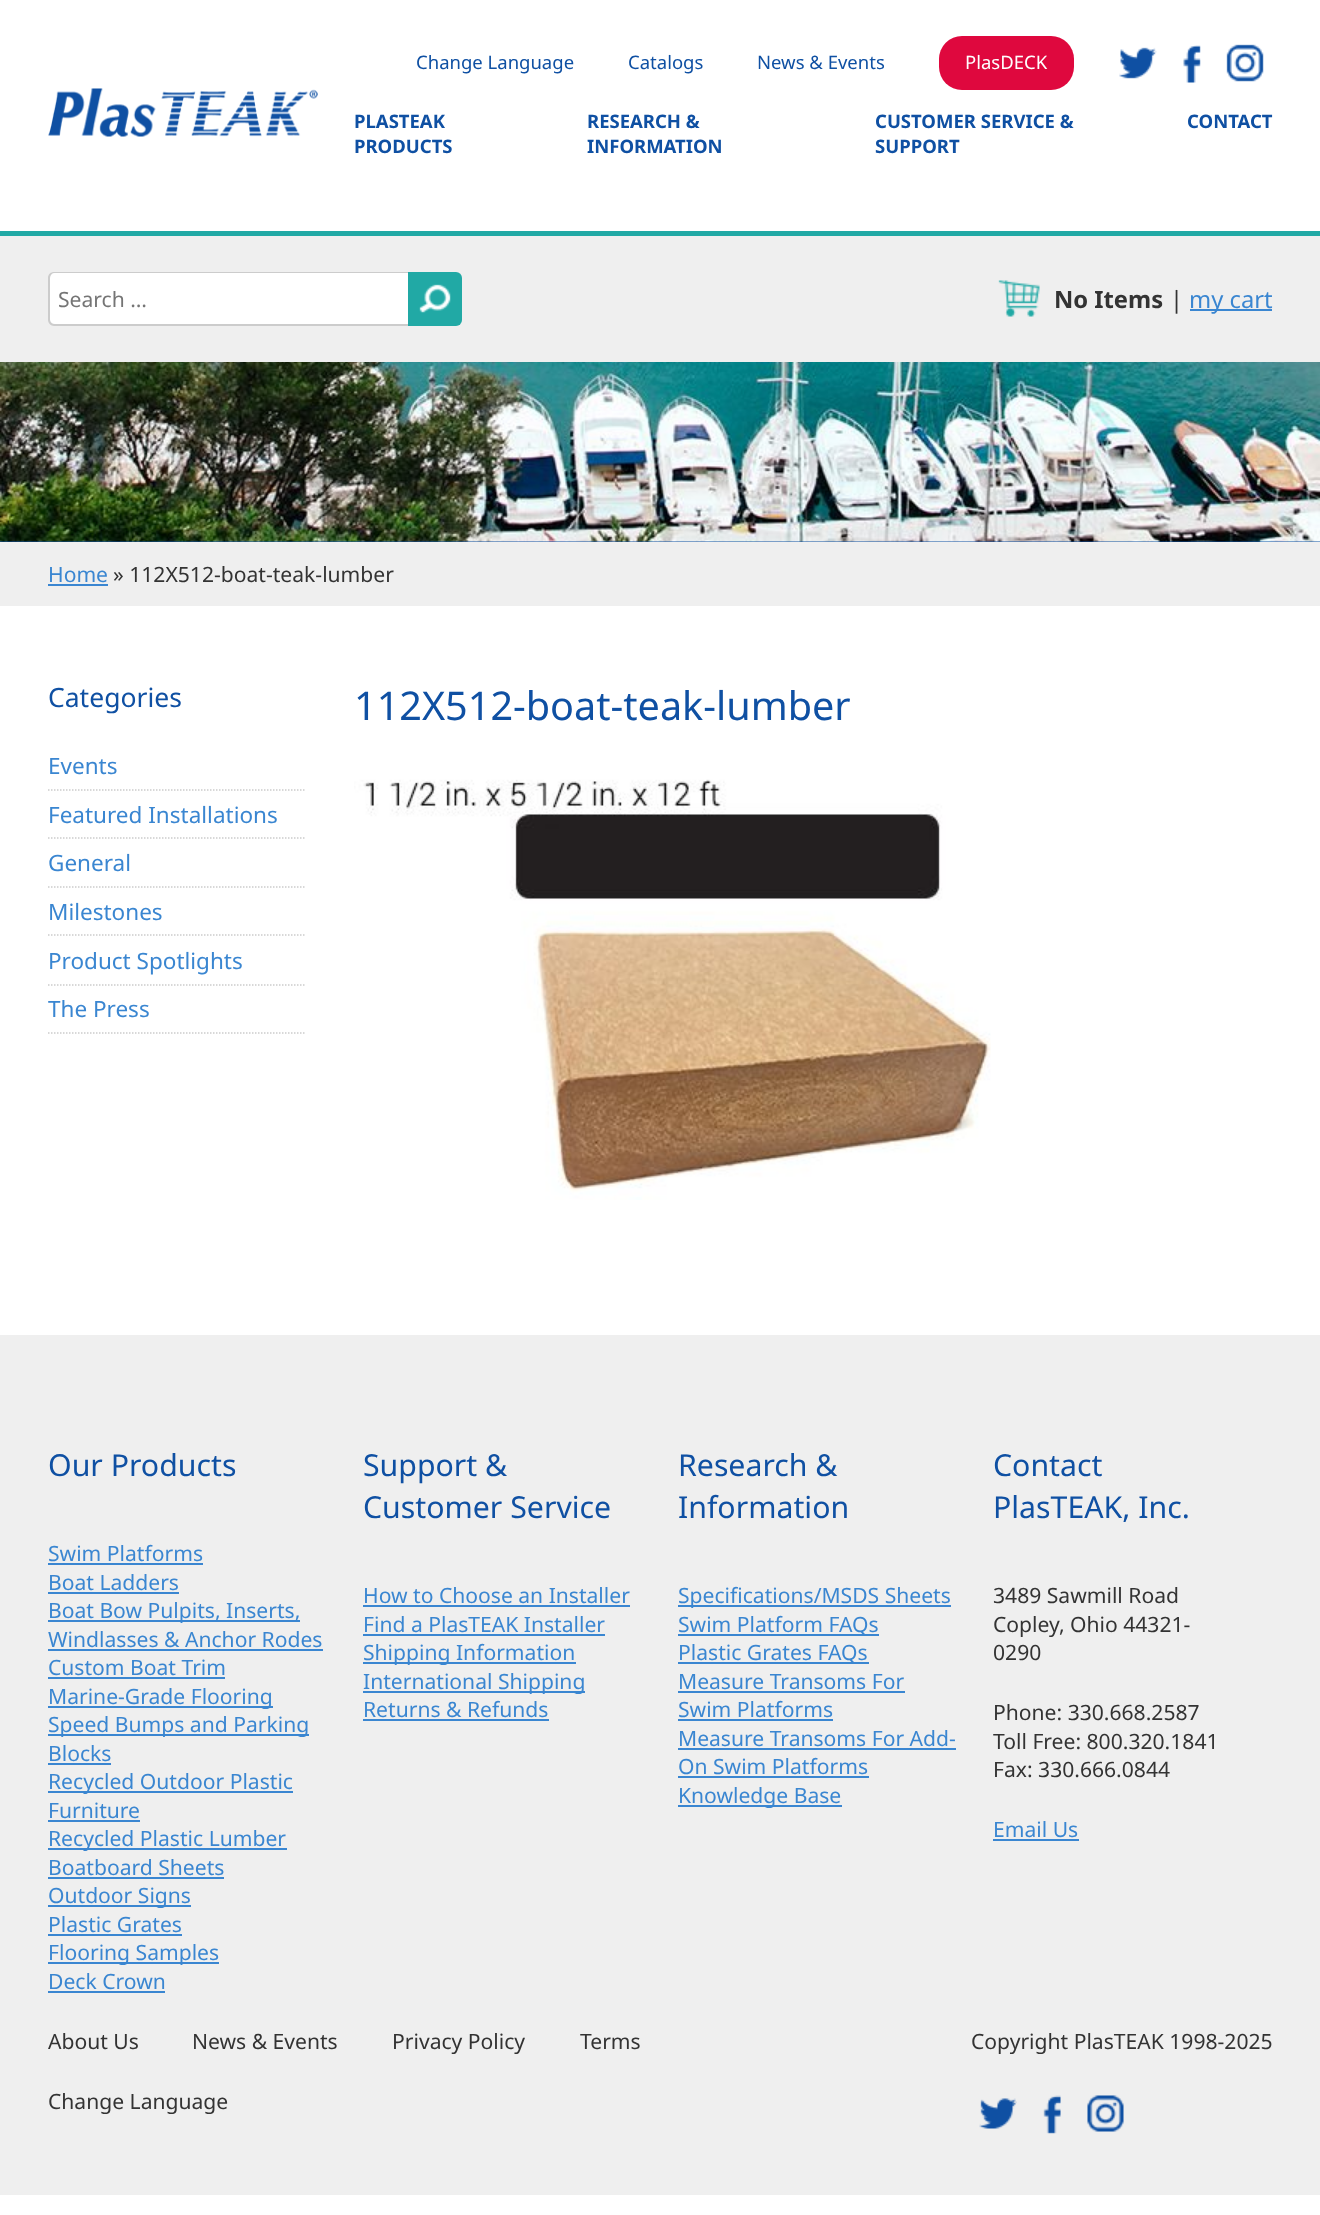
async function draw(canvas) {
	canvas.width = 1320;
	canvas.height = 2215;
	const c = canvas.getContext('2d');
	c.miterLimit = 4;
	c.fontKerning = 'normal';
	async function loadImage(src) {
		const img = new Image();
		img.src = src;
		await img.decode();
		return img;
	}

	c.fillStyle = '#fff';
	c.fillRect(0, 0, 1320, 2215);
	c.fillStyle = '#21a9a5';
	c.fillRect(0, 231, 1320, 5);
	c.drawImage(await loadImage('img1.png'), 48, 88, 270, 49);
	c.font = '18.5px Noto Sans';
	c.fillStyle = '#0f50a3';
	for (const [text, x, y] of [
		['Change Language', 416, 69],
		['Catalogs', 628, 69],
		['News & Events', 757, 69],
	]) {
		c.fillText(text, x, y);
	}
	c.fillStyle = '#df083e';
	c.beginPath();
	c.roundRect(939, 36, 135, 54, 23);
	c.fill();
	c.fillStyle = '#fff';
	c.fillText('PlasDECK', 965, 69);
	c.drawImage(await loadImage('img2.png'), 1119, 47, 38, 32);
	c.drawImage(await loadImage('img3.png'), 1183, 45, 18, 38);
	c.drawImage(await loadImage('img4.png'), 1226, 44, 38, 38);
	c.font = 'bold 18.5px Noto Sans';
	c.fillStyle = '#0f50a3';
	for (const [text, x, y] of [
		['PLASTEAK', 354, 128],
		['PRODUCTS', 354, 153],
		['RESEARCH &', 587, 128],
		['INFORMATION', 587, 153],
		['CUSTOMER SERVICE &', 875, 128],
		['SUPPORT', 875, 153],
		['CONTACT', 1187, 128],
	]) {
		c.fillText(text, x, y);
	}
	c.fillStyle = '#efefef';
	c.fillRect(0, 236, 1320, 126);
	c.fillStyle = '#fff';
	c.beginPath();
	c.roundRect(50, 273, 358, 51, [5, 0, 0, 5]);
	c.fill();
	c.fillStyle = '#ccc';
	c.beginPath();
	c.moveTo(54, 272);
	c.lineTo(408, 272);
	c.lineTo(408, 326);
	c.lineTo(54, 326);
	c.bezierCurveTo(51, 326, 48, 323, 48, 320);
	c.lineTo(48, 278);
	c.bezierCurveTo(48, 274, 51, 272, 54, 272);
	c.closePath();
	c.moveTo(54, 273);
	c.lineTo(408, 273);
	c.lineTo(408, 324);
	c.lineTo(54, 324);
	c.bezierCurveTo(52, 324, 50, 322, 50, 320);
	c.lineTo(50, 278);
	c.bezierCurveTo(50, 275, 52, 273, 54, 273);
	c.closePath();
	c.fill('evenodd');
	c.font = '21.1px Noto Sans';
	c.fillStyle = '#757575';
	c.fillText('Search …', 58, 307);
	c.fillStyle = '#21a9a5';
	c.beginPath();
	c.roundRect(408, 272, 54, 54, [0, 6, 6, 0]);
	c.fill();
	c.drawImage(await loadImage('img5.png'), 419, 284, 32, 29);
	c.drawImage(await loadImage('img6.png'), 998, 280, 42, 37);
	c.font = 'bold 23.75px Noto Sans';
	c.fillStyle = '#333';
	c.fillText('No Items', 1054, 308);
	c.font = '23.75px Noto Sans';
	c.fillText('|', 1170, 308);
	c.fillStyle = '#3a86d1';
	c.fillRect(1190, 309, 82, 2);
	c.fillText('my cart', 1189, 308);
	c.fillStyle = '#0f50a3';
	c.fillRect(0, 541, 1320, 1);
	c.drawImage(await loadImage('img7.png'), 0, 362, 1320, 180);
	c.fillStyle = '#efefef';
	c.fillRect(0, 542, 1320, 64);
	c.font = '21.1px Noto Sans';
	c.fillStyle = '#3a86d1';
	c.fillText('Home', 48, 582);
	c.fillRect(48, 584, 60, 2);
	c.fillStyle = '#333';
	c.fillText('» 112X512-boat-teak-lumber', 113, 582);
	c.font = '26.5px Noto Sans';
	c.fillStyle = '#0f50a3';
	c.fillText('Categories', 48, 707);
	c.beginPath();
	c.moveTo(48, 790);
	c.lineTo(306, 790);
	c.strokeStyle = '#ccc';
	c.lineWidth = 1.5;
	c.setLineDash([1.5, 1.5]);
	c.stroke();
	c.font = '22.5px Noto Sans';
	c.fillStyle = '#3a86d1';
	c.fillText('Events', 48, 774);
	c.beginPath();
	c.moveTo(48, 838);
	c.lineTo(306, 838);
	c.stroke();
	c.fillText('Featured Installations', 48, 823);
	c.beginPath();
	c.moveTo(48, 887);
	c.lineTo(306, 887);
	c.stroke();
	c.fillText('General', 48, 871);
	c.beginPath();
	c.moveTo(48, 935);
	c.lineTo(306, 935);
	c.stroke();
	c.fillText('Milestones', 48, 920);
	c.beginPath();
	c.moveTo(48, 985);
	c.lineTo(306, 985);
	c.stroke();
	c.fillText('Product Spotlights', 48, 969);
	c.beginPath();
	c.moveTo(48, 1033);
	c.lineTo(306, 1033);
	c.stroke();
	c.fillText('The Press', 48, 1017);
	c.font = '39.6px Noto Sans';
	c.fillStyle = '#0f50a3';
	c.fillText('112X512-boat-teak-lumber', 354, 720);
	c.drawImage(await loadImage('img8.png'), 354, 779, 637, 421);
	c.fillStyle = '#efefef';
	c.fillRect(0, 1335, 1320, 860);
	c.font = '30.25px Noto Sans';
	c.fillStyle = '#0f50a3';
	c.fillText('Our Products', 48, 1476);
	c.font = '21.1px Noto Sans';
	c.fillStyle = '#3a86d1';
	c.fillText('Swim Platforms', 48, 1561);
	c.fillRect(48, 1563, 155, 2);
	c.fillText('Boat Ladders', 48, 1590);
	c.fillRect(48, 1592, 131, 2);
	c.fillRect(48, 1620, 252, 2);
	c.fillText('Boat Bow Pulpits, Inserts,', 48, 1618);
	c.fillText('Windlasses & Anchor Rodes', 48, 1647);
	c.fillRect(48, 1649, 275, 2);
	c.fillText('Custom Boat Trim', 48, 1675);
	c.fillRect(48, 1677, 177, 2);
	c.fillRect(48, 1706, 225, 2);
	c.fillText('Marine-Grade Flooring', 48, 1704);
	c.fillRect(48, 1734, 261, 2);
	c.fillText('Speed Bumps and Parking', 48, 1732);
	c.fillText('Blocks', 48, 1761);
	c.fillRect(48, 1763, 63, 2);
	c.fillRect(48, 1791, 245, 2);
	c.fillText('Recycled Outdoor Plastic', 48, 1789);
	c.fillText('Furniture', 48, 1818);
	c.fillRect(48, 1820, 92, 2);
	c.fillRect(48, 1848, 239, 2);
	c.fillText('Recycled Plastic Lumber', 48, 1846);
	c.fillText('Boatboard Sheets', 48, 1875);
	c.fillRect(48, 1877, 176, 2);
	c.fillRect(48, 1905, 143, 2);
	c.fillText('Outdoor Signs', 48, 1903);
	c.fillText('Plastic Grates', 48, 1932);
	c.fillRect(48, 1934, 134, 2);
	c.fillRect(48, 1962, 171, 2);
	c.fillText('Flooring Samples', 48, 1960);
	c.fillText('Deck Crown', 48, 1989);
	c.fillRect(48, 1991, 117, 2);
	c.font = '30.25px Noto Sans';
	c.fillStyle = '#0f50a3';
	c.fillText('Support &', 363, 1476);
	c.fillText('Customer Service', 363, 1518);
	c.font = '21.1px Noto Sans';
	c.fillStyle = '#3a86d1';
	c.fillText('How to Choose an Installer', 363, 1603);
	c.fillRect(363, 1605, 267, 2);
	c.fillText('Find a PlasTEAK Installer', 363, 1632);
	c.fillRect(363, 1634, 242, 2);
	c.fillRect(363, 1662, 213, 2);
	c.fillText('Shipping Information', 363, 1660);
	c.fillRect(363, 1691, 222, 2);
	c.fillText('International Shipping', 363, 1689);
	c.fillText('Returns & Refunds', 363, 1717);
	c.fillRect(363, 1719, 186, 2);
	c.font = '30.25px Noto Sans';
	c.fillStyle = '#0f50a3';
	c.fillText('Research &', 678, 1476);
	c.fillText('Information', 678, 1518);
	c.fillStyle = '#3a86d1';
	c.fillRect(678, 1605, 273, 2);
	c.font = '21.1px Noto Sans';
	c.fillText('Specifications/MSDS Sheets', 678, 1603);
	c.fillRect(678, 1634, 201, 2);
	c.fillText('Swim Platform FAQs', 678, 1632);
	c.fillRect(678, 1662, 191, 2);
	c.fillText('Plastic Grates FAQs', 678, 1660);
	c.fillText('Measure Transoms For', 678, 1689);
	c.fillRect(678, 1691, 227, 2);
	c.fillText('Swim Platforms', 678, 1717);
	c.fillRect(678, 1719, 155, 2);
	c.fillText('Measure Transoms For Add-', 678, 1746);
	c.fillRect(678, 1748, 278, 2);
	c.fillText('On Swim Platforms', 678, 1774);
	c.fillRect(678, 1776, 191, 2);
	c.fillRect(678, 1805, 164, 2);
	c.fillText('Knowledge Base', 678, 1803);
	c.font = '30.25px Noto Sans';
	c.fillStyle = '#0f50a3';
	c.fillText('Contact', 993, 1476);
	c.fillText('PlasTEAK, Inc.', 993, 1518);
	c.font = '21.1px Noto Sans';
	c.fillStyle = '#333';
	for (const [text, x, y] of [
		['3489 Sawmill Road', 993, 1603],
		['Copley, Ohio 44321-', 993, 1632],
		['0290', 993, 1660],
		['Phone: 330.668.2587', 993, 1720],
		['Toll Free: 800.320.1841', 993, 1749],
		['Fax: 330.666.0844', 993, 1777],
	]) {
		c.fillText(text, x, y);
	}
	c.fillStyle = '#3a86d1';
	c.fillText('Email Us', 993, 1837);
	c.fillRect(993, 1839, 86, 2);
	c.fillStyle = '#333';
	for (const [text, x, y] of [
		['About Us', 48, 2049],
		['News & Events', 192, 2049],
		['Privacy Policy', 392, 2049],
		['Terms', 580, 2049],
		['Change Language', 48, 2109],
		['Copyright PlasTEAK 1998-2025', 971, 2049],
	]) {
		c.fillText(text, x, y);
	}
	c.drawImage(await loadImage('img9.png'), 979, 2098, 38, 31);
	c.drawImage(await loadImage('img10.png'), 1043, 2095, 18, 39);
	c.drawImage(await loadImage('img11.png'), 1087, 2095, 37, 37);
}

draw(document.querySelector('canvas'));
